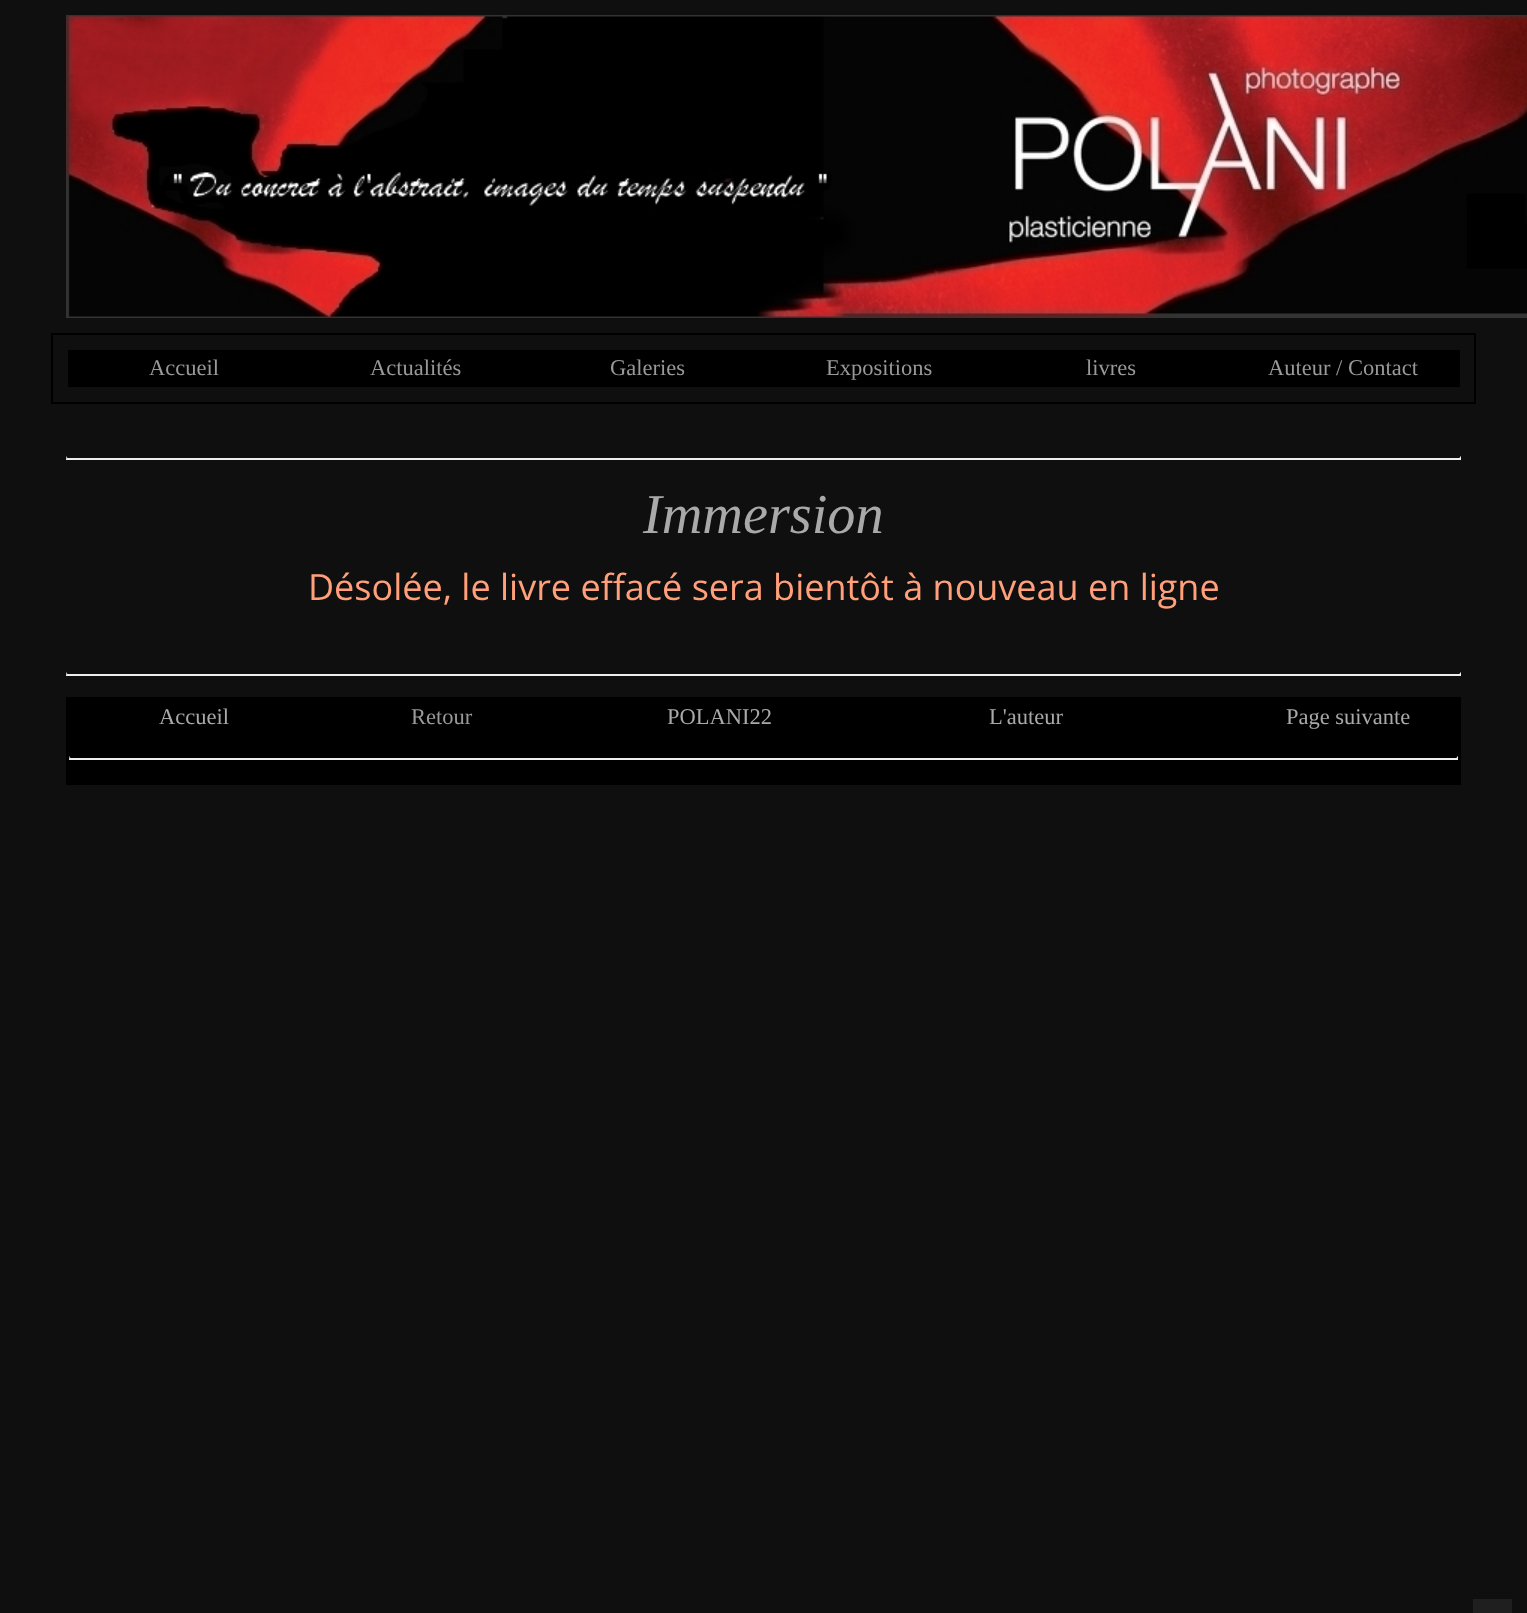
async function draw(canvas) {
	canvas.width = 1527;
	canvas.height = 1613;
	const c = canvas.getContext('2d');
	c.miterLimit = 4;
	c.fontKerning = 'normal';
	async function loadImage(src) {
		const img = new Image();
		img.src = src;
		await img.decode();
		return img;
	}

	c.fillStyle = '#0f0f0f';
	c.fillRect(0, 0, 1527, 1613);
	c.drawImage(await loadImage('img1.png'), 66, 15, 1461, 303);
	c.strokeStyle = '#000';
	c.lineWidth = 2;
	c.strokeRect(52, 334, 1423, 69);
	c.fillStyle = '#000';
	c.fillRect(68, 350, 1392, 37);
	c.font = '22.5px Liberation Serif';
	c.fillStyle = '#999';
	for (const [text, x, y] of [
		['Accueil', 149, 375],
		['Actualités', 370, 375],
		['Galeries', 610, 375],
		['Expositions', 826, 375],
		['livres', 1086, 375],
		['Auteur / Contact', 1268, 375],
	]) {
		c.fillText(text, x, y);
	}
	c.fillStyle = '#eee';
	c.beginPath();
	c.moveTo(1461, 456);
	c.lineTo(1461, 459);
	c.lineTo(1459.5, 457.5);
	c.closePath();
	c.fill();
	c.fillRect(66, 458, 1395, 2);
	c.fillStyle = '#9f9f9f';
	c.beginPath();
	c.moveTo(66, 459);
	c.lineTo(66, 456);
	c.lineTo(67.5, 457.5);
	c.closePath();
	c.fill();
	c.font = 'italic 56.25px Liberation Serif';
	c.fillStyle = '#a9a9a9';
	c.fillText('Immersion', 643, 533);
	c.font = '36px Open Sans';
	c.fillStyle = '#ffa07a';
	c.fillText('Désolée, le livre effacé sera bientôt à nouveau en ligne', 308, 600);
	c.fillStyle = '#eee';
	c.beginPath();
	c.moveTo(1461, 672);
	c.lineTo(1461, 675);
	c.lineTo(1459.5, 673.5);
	c.closePath();
	c.fill();
	c.fillRect(66, 674, 1395, 2);
	c.fillStyle = '#9f9f9f';
	c.beginPath();
	c.moveTo(66, 675);
	c.lineTo(66, 672);
	c.lineTo(67.5, 673.5);
	c.closePath();
	c.fill();
	c.fillStyle = '#000';
	c.fillRect(66, 697, 1395, 88);
	c.font = '22.5px Liberation Serif';
	c.fillStyle = '#a9a9a9';
	c.fillText('Accueil', 159, 724);
	c.fillStyle = '#999';
	c.fillText('Retour', 411, 724);
	c.fillStyle = '#a9a9a9';
	for (const [text, x, y] of [
		['POLANI22', 667, 724],
		['L\'auteur', 989, 724],
		['Page suivante', 1286, 724],
	]) {
		c.fillText(text, x, y);
	}
	c.fillStyle = '#eee';
	c.beginPath();
	c.moveTo(1458, 756);
	c.lineTo(1458, 759);
	c.lineTo(1456.5, 757.5);
	c.closePath();
	c.fill();
	c.fillRect(69, 758, 1389, 2);
	c.fillStyle = '#9f9f9f';
	c.beginPath();
	c.moveTo(69, 759);
	c.lineTo(69, 756);
	c.lineTo(70.5, 757.5);
	c.closePath();
	c.fill();
	c.fillStyle = '#1f1f1f';
	c.fillRect(1473, 1599, 39, 14);
}

draw(document.querySelector('canvas'));
